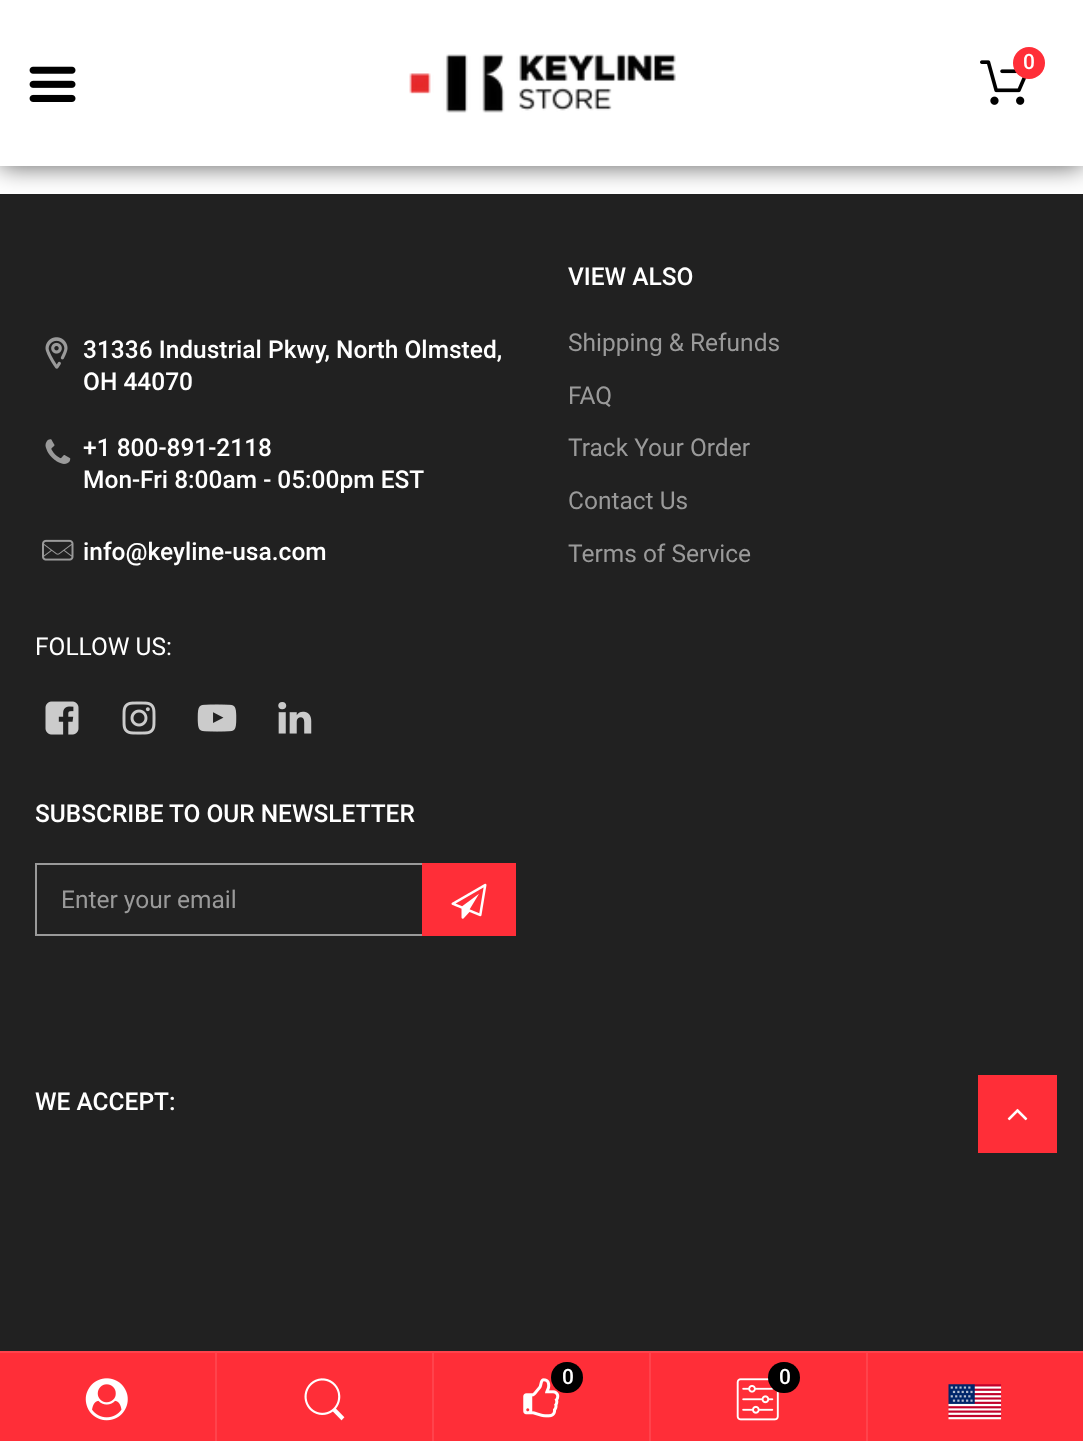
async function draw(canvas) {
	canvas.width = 1083;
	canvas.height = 1441;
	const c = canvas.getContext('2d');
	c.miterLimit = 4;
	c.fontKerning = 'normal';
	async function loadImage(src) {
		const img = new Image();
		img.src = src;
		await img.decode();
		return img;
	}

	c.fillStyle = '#fff';
	c.fillRect(0, 0, 1083, 1441);
	c.fillStyle = '#212121';
	c.fillRect(0, 194, 1083, 1157);
	c.fillStyle = '#000000a6';
	c.filter = 'blur(13px)';
	c.beginPath();
	c.rect(0, 0, 1083, 166);
	c.fill();
	c.filter = 'none';
	c.fillStyle = '#fff';
	c.fillRect(0, 0, 1083, 166);
	c.drawImage(await loadImage('img1.png'), 29, 66, 47, 36);
	c.drawImage(await loadImage('img2.png'), 409, 54, 267, 59);
	c.drawImage(await loadImage('img3.png'), 980, 60, 47, 45);
	c.fillStyle = '#ff2e38';
	c.beginPath();
	c.arc(1029, 63, 16, 0, 2 * Math.PI);
	c.fill();
	c.font = '500 21px Roboto';
	c.fillStyle = '#fff';
	c.fillText('0', 1023, 69);
	c.drawImage(await loadImage('img4.png'), 45, 337, 23, 32);
	c.font = '500 24.5px Roboto';
	c.fillText('31336 Industrial Pkwy, North Olmsted,', 83, 358);
	c.fillText('OH 44070', 83, 390);
	c.drawImage(await loadImage('img5.png'), 45, 439, 26, 25);
	c.fillText('+1 800-891-2118', 83, 456);
	c.fillText('Mon-Fri 8:00am - 05:00pm EST', 83, 488);
	c.drawImage(await loadImage('img6.png'), 42, 539, 32, 22);
	c.fillText('info@keyline-usa.com', 83, 560);
	c.font = '24.5px Roboto';
	c.fillText('FOLLOW US:', 35, 655);
	c.drawImage(await loadImage('img7.png'), 45, 701, 34, 34);
	c.drawImage(await loadImage('img8.png'), 122, 701, 34, 34);
	c.drawImage(await loadImage('img9.png'), 197, 704, 40, 28);
	c.drawImage(await loadImage('img10.png'), 278, 702, 34, 32);
	c.font = '500 24.5px Roboto';
	c.fillText('VIEW ALSO', 568, 285);
	c.font = '24.5px Roboto';
	c.fillStyle = '#9a9a9a';
	for (const [text, x, y] of [
		['Shipping & Refunds', 568, 351],
		['FAQ', 568, 404],
		['Track Your Order', 568, 456],
		['Contact Us', 568, 509],
		['Terms of Service', 568, 562],
	]) {
		c.fillText(text, x, y);
	}
	c.font = '500 24.5px Roboto';
	c.fillStyle = '#fff';
	c.fillText('SUBSCRIBE TO OUR NEWSLETTER', 35, 822);
	c.strokeStyle = '#9a9a9a';
	c.lineWidth = 2;
	c.strokeRect(36, 864, 430, 71);
	c.font = '24.5px Roboto';
	c.fillStyle = '#9a9a9a';
	c.fillText('Enter your email', 61, 908);
	c.fillStyle = '#ff2e38';
	c.fillRect(422, 863, 94, 73);
	c.drawImage(await loadImage('img11.png'), 451, 883, 36, 36);
	c.font = '500 24.5px Roboto';
	c.fillStyle = '#fff';
	c.fillText('WE ACCEPT:', 35, 1110);
	c.fillStyle = '#ff2e38';
	c.fillRect(978, 1075, 79, 78);
	c.drawImage(await loadImage('img12.png'), 1007, 1108, 21, 13);
	for (const [x, y, w, h, color] of [
		[0, 1353, 1083, 88, '#ff2e38'],
		[0, 1351, 1083, 2, '#ff434c'],
		[215, 1353, 2, 88, '#ff434c'],
	]) {
		c.fillStyle = color;
		c.fillRect(x, y, w, h);
	}
	c.drawImage(await loadImage('img13.png'), 85, 1378, 43, 43);
	c.fillRect(432, 1353, 2, 88);
	c.drawImage(await loadImage('img14.png'), 304, 1378, 41, 43);
	c.fillRect(649, 1353, 2, 88);
	c.drawImage(await loadImage('img15.png'), 523, 1378, 37, 40);
	c.fillStyle = '#000';
	c.beginPath();
	c.roundRect(551, 1362, 32, 31, 15.5);
	c.fill();
	c.font = '500 21px Roboto';
	c.fillStyle = '#fff';
	c.fillText('0', 562, 1384);
	c.fillStyle = '#ff434c';
	c.fillRect(866, 1353, 2, 88);
	c.drawImage(await loadImage('img16.png'), 736, 1378, 43, 43);
	c.fillStyle = '#000';
	c.beginPath();
	c.roundRect(768, 1362, 32, 31, 15.5);
	c.fill();
	c.fillStyle = '#fff';
	c.fillText('0', 779, 1384);
	c.drawImage(await loadImage('img17.png'), 948, 1384, 54, 36);
}

draw(document.querySelector('canvas'));
